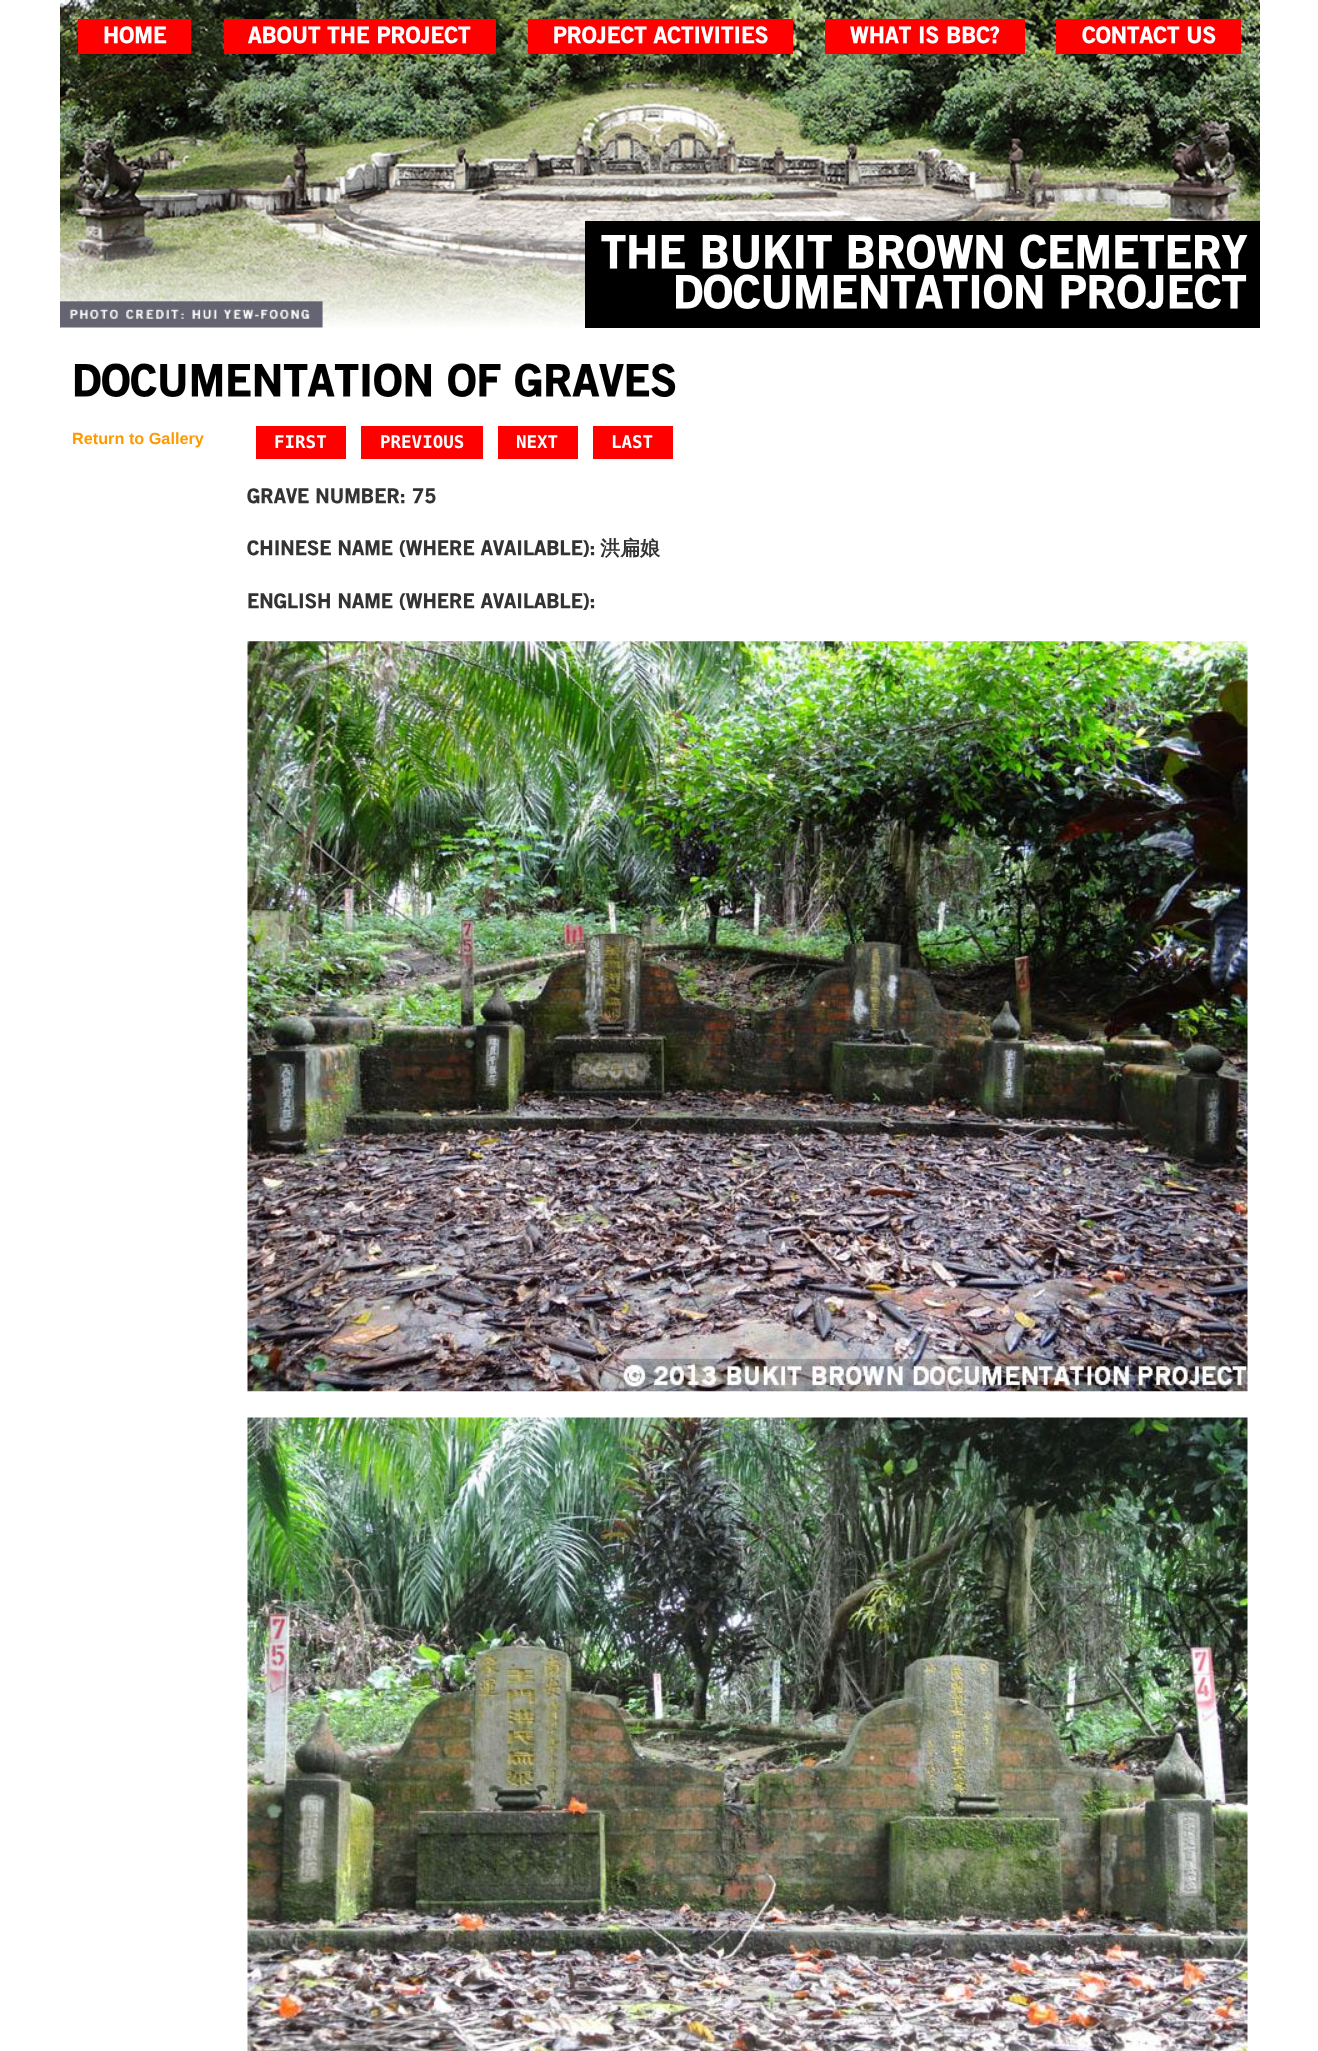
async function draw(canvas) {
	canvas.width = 1318;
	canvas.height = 2051;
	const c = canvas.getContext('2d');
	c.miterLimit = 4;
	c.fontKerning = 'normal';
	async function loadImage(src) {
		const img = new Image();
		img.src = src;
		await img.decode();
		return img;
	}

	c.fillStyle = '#fff';
	c.fillRect(0, 0, 1318, 2051);
	c.drawImage(await loadImage('img1.png'), 60, 0, 1200, 328);
	c.fillStyle = '#f00';
	c.fillRect(78, 19, 113, 35);
	c.font = '900 22.5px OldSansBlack';
	c.fillStyle = '#fff';
	c.fillText('HOME', 103, 43);
	c.fillStyle = '#f00';
	c.fillRect(224, 19, 272, 35);
	c.fillStyle = '#fff';
	c.fillText('ABOUT THE PROJECT', 248, 43);
	c.fillStyle = '#f00';
	c.fillRect(528, 19, 265, 35);
	c.fillStyle = '#fff';
	c.fillText('PROJECT ACTIVITIES', 553, 43);
	c.fillStyle = '#f00';
	c.fillRect(825, 19, 200, 35);
	c.fillStyle = '#fff';
	c.fillText('WHAT IS BBC?', 850, 43);
	c.fillStyle = '#f00';
	c.fillRect(1056, 19, 185, 35);
	c.fillStyle = '#fff';
	c.fillText('CONTACT US', 1082, 43);
	c.fillStyle = '#000';
	c.fillRect(585, 221, 675, 107);
	c.font = '900 45px OldSansBlack';
	c.fillStyle = '#fff';
	c.fillText('THE BUKIT BROWN CEMETERY', 601, 268);
	c.fillText('DOCUMENTATION PROJECT', 673, 308);
	c.font = '900 43.75px OldSansBlack';
	c.fillStyle = '#000';
	c.fillText('DOCUMENTATION OF GRAVES', 72, 396);
	c.font = 'bold 16.25px Liberation Sans';
	c.fillStyle = '#f90';
	c.fillText('Return to Gallery', 72, 444);
	c.fillStyle = '#f00';
	c.fillRect(256, 426, 90, 33);
	c.font = 'bold 17.5px DejaVu Sans Mono';
	c.fillStyle = '#fff';
	c.fillText('FIRST', 274, 448);
	c.fillStyle = '#f00';
	c.fillRect(361, 426, 122, 33);
	c.fillStyle = '#fff';
	c.fillText('PREVIOUS', 380, 448);
	c.fillStyle = '#f00';
	c.fillRect(498, 426, 80, 33);
	c.fillStyle = '#fff';
	c.fillText('NEXT', 516, 448);
	c.fillStyle = '#f00';
	c.fillRect(593, 426, 80, 33);
	c.fillStyle = '#fff';
	c.fillText('LAST', 611, 448);
	c.font = '900 20px OldSansBlack';
	c.fillStyle = '#333';
	c.fillText('GRAVE NUMBER: 75', 247, 503);
	c.fillText('CHINESE NAME (WHERE AVAILABLE):', 247, 555);
	c.font = 'bold 20px WenQuanYi Zen Hei';
	c.fillText('洪扁娘', 600, 555);
	c.font = '900 20px OldSansBlack';
	c.fillText('ENGLISH NAME (WHERE AVAILABLE):', 247, 608);
	c.drawImage(await loadImage('img2.png'), 247, 641, 1001, 751);
	c.drawImage(await loadImage('img3.png'), 247, 1417, 1001, 634);
}

draw(document.querySelector('canvas'));
